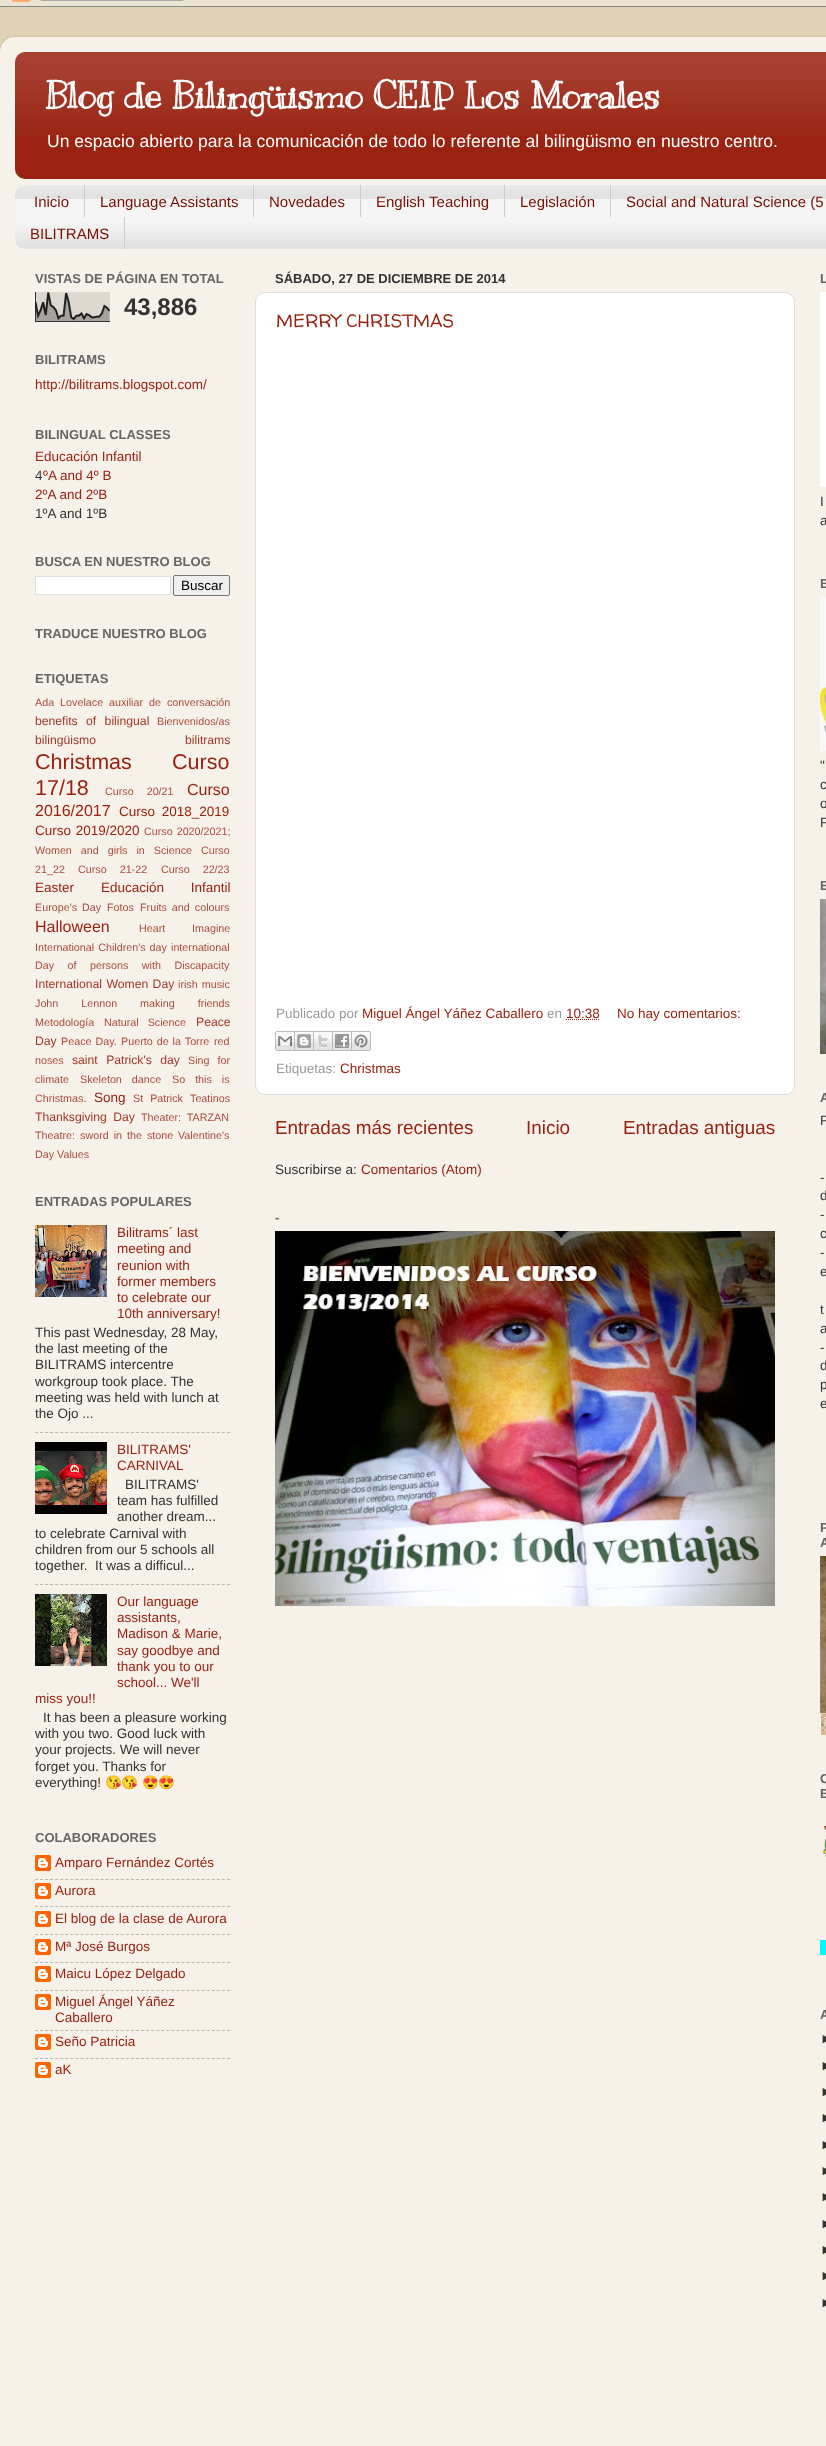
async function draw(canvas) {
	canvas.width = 826;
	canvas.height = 2446;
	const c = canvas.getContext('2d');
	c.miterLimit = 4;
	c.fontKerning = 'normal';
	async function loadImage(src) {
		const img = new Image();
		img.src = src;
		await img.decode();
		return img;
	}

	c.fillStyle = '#e0d2b5';
	c.fillRect(0, 0, 826, 2446);
	c.drawImage(await loadImage('img1.png'), 0, 0, 826, 7);
	c.save();
	c.beginPath();
	c.moveTo(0, 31);
	c.lineTo(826, 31);
	c.lineTo(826, 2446);
	c.lineTo(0, 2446);
	c.closePath();
	c.moveTo(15, 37);
	c.lineTo(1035, 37);
	c.bezierCurveTo(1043.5, 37, 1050, 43.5, 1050, 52);
	c.lineTo(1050, 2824);
	c.bezierCurveTo(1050, 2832.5, 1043.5, 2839, 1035, 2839);
	c.lineTo(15, 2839);
	c.bezierCurveTo(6.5, 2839, 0, 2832.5, 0, 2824);
	c.lineTo(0, 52);
	c.bezierCurveTo(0, 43.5, 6.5, 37, 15, 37);
	c.closePath();
	c.clip('evenodd');
	c.fillStyle = '#00000026';
	c.filter = 'blur(1.5px)';
	c.beginPath();
	c.roundRect(0, 37, 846, 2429, 15);
	c.fill();
	c.filter = 'none';
	c.restore();
	c.drawImage(await loadImage('img2.png'), 0, 37, 826, 2409);
	c.fillStyle = '#921';
	c.beginPath();
	c.roundRect(15, 52, 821, 127, 10);
	c.fill();
	c.drawImage(await loadImage('img3.png'), 15, 52, 811, 84);
	c.font = 'bold 36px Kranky';
	c.fillStyle = '#fff';
	c.fillText('Blog de Bilingüismo CEIP Los Morales', 45, 108);
	c.font = '17.55px Liberation Sans';
	c.fillText('Un espacio abierto para la comunicación de todo lo referente al bilingüismo en nuestro centro.', 47, 147);
	c.fillStyle = '#f5f5f5';
	c.beginPath();
	c.roundRect(15, 185, 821, 64, 10);
	c.fill();
	c.drawImage(await loadImage('img4.png'), 15, 185, 811, 64);
	c.fillStyle = '#ccc';
	c.fillRect(84, 185, 1, 32);
	c.font = '15px Liberation Sans';
	c.fillStyle = '#771000';
	c.fillText('Inicio', 34, 207);
	c.fillStyle = '#ccc';
	c.fillRect(253, 185, 1, 32);
	c.fillStyle = '#771000';
	c.fillText('Language Assistants', 100, 207);
	c.fillStyle = '#ccc';
	c.fillRect(360, 185, 1, 32);
	c.fillStyle = '#771000';
	c.fillText('Novedades', 269, 207);
	c.fillStyle = '#ccc';
	c.fillRect(504, 185, 1, 32);
	c.fillStyle = '#771000';
	c.fillText('English Teaching', 376, 207);
	c.fillStyle = '#ccc';
	c.fillRect(610, 185, 1, 32);
	c.fillStyle = '#771000';
	c.fillText('Legislación', 520, 207);
	c.fillText('Social and Natural Science (5', 626, 207);
	c.fillStyle = '#ccc';
	c.fillRect(124, 217, 1, 32);
	c.fillStyle = '#771000';
	c.fillText('BILITRAMS', 30, 239);
	c.font = 'bold 13px Liberation Sans';
	c.fillStyle = '#666';
	c.fillText('VISTAS DE PÁGINA EN TOTAL', 35, 283);
	c.drawImage(await loadImage('img5.png'), 35, 292, 75, 30);
	c.font = 'bold 24px Liberation Sans';
	c.fillStyle = '#333';
	c.fillText('43,886', 124, 315);
	c.font = 'bold 13px Liberation Sans';
	c.fillStyle = '#666';
	c.fillText('BILITRAMS', 35, 364);
	c.font = '13.5px Liberation Sans';
	c.fillStyle = '#921';
	c.fillText('http://bilitrams.blogspot.com/', 35, 389);
	c.font = 'bold 13px Liberation Sans';
	c.fillStyle = '#666';
	c.fillText('BILINGUAL CLASSES', 35, 439);
	c.font = '13.5px Liberation Sans';
	c.fillStyle = '#921';
	c.fillText('Educación Infantil', 35, 461);
	c.fillStyle = '#333';
	c.fillText('4', 35, 480);
	c.fillStyle = '#921';
	c.fillText('ºA and 4º B', 43, 480);
	c.fillText('2ºA and 2ºB', 35, 499);
	c.fillStyle = '#333';
	c.fillText('1ºA and 1ºB', 35, 518);
	c.font = 'bold 13px Liberation Sans';
	c.fillStyle = '#666';
	c.fillText('BUSCA EN NUESTRO BLOG', 35, 566);
	c.fillStyle = '#fff';
	c.beginPath();
	c.rect(35.5, 576.5, 135, 18);
	c.fill();
	c.strokeStyle = '#ddd';
	c.stroke();
	c.fillStyle = '#efefef';
	c.beginPath();
	c.roundRect(173.5, 575.5, 56, 20, 1.5);
	c.fill();
	c.strokeStyle = '#767676';
	c.stroke();
	c.font = '13.5px Liberation Sans';
	c.fillStyle = '#000';
	c.fillText('Buscar', 181, 590);
	c.font = 'bold 13px Liberation Sans';
	c.fillStyle = '#666';
	c.fillText('TRADUCE NUESTRO BLOG', 35, 638);
	c.fillText('ETIQUETAS', 35, 683);
	c.wordSpacing = '3px';
	c.font = '10.75px Liberation Sans';
	c.fillStyle = '#ac4c3c';
	c.fillText('Ada Lovelace', 35, 706);
	c.fillText('auxiliar de conversación', 109, 706);
	c.wordSpacing = '5px';
	c.font = '12.2px Liberation Sans';
	c.fillStyle = '#a23727';
	c.fillText('benefits of bilingual', 35, 725);
	c.wordSpacing = '0px';
	c.font = '10.75px Liberation Sans';
	c.fillStyle = '#ac4c3c';
	c.fillText('Bienvenidos/as', 157, 725);
	c.font = '12.2px Liberation Sans';
	c.fillStyle = '#a23727';
	c.fillText('bilingüismo', 35, 744);
	c.fillText('bilitrams', 185, 744);
	c.font = '21.5px Liberation Sans';
	c.fillStyle = '#921';
	for (const [text, x, y] of [
		['Christmas', 35, 769],
		['Curso', 172, 769],
		['17/18', 35, 795],
	]) {
		c.fillText(text, x, y);
	}
	c.wordSpacing = '10px';
	c.font = '10.75px Liberation Sans';
	c.fillStyle = '#ac4c3c';
	c.fillText('Curso 20/21', 105, 795);
	c.wordSpacing = '0px';
	c.font = '16px Liberation Sans';
	c.fillStyle = '#921';
	c.fillText('Curso', 187, 795);
	c.fillText('2016/2017', 35, 816);
	c.wordSpacing = '3px';
	c.font = '13.5px Liberation Sans';
	c.fillText('Curso 2018_2019', 119, 816);
	c.wordSpacing = '1px';
	c.fillText('Curso 2019/2020', 35, 835);
	c.font = '10.75px Liberation Sans';
	c.fillStyle = '#ac4c3c';
	c.fillText('Curso 2020/2021;', 144, 835);
	c.wordSpacing = '6px';
	c.fillText('Women and girls in Science', 35, 854);
	c.wordSpacing = '0px';
	c.fillText('Curso', 201, 854);
	c.fillText('21_22', 35, 873);
	c.wordSpacing = '10px';
	c.fillText('Curso 21-22', 78, 873);
	c.fillText('Curso 22/23', 161, 873);
	c.wordSpacing = '0px';
	c.font = '13.5px Liberation Sans';
	c.fillStyle = '#921';
	c.fillText('Easter', 35, 892);
	c.wordSpacing = '23px';
	c.fillText('Educación Infantil', 101, 892);
	c.wordSpacing = '2px';
	c.font = '10.75px Liberation Sans';
	c.fillStyle = '#ac4c3c';
	c.fillText('Europe\'s Day', 35, 911);
	c.wordSpacing = '0px';
	c.fillText('Fotos', 107, 911);
	c.wordSpacing = '2px';
	c.fillText('Fruits and colours', 140, 911);
	c.wordSpacing = '0px';
	c.font = '16px Liberation Sans';
	c.fillStyle = '#921';
	c.fillText('Halloween', 35, 932);
	c.font = '10.75px Liberation Sans';
	c.fillStyle = '#ac4c3c';
	c.fillText('Heart', 139, 932);
	c.fillText('Imagine', 192, 932);
	c.wordSpacing = '1px';
	c.fillText('International Children\'s day', 35, 951);
	c.wordSpacing = '0px';
	c.fillText('international', 171, 951);
	c.wordSpacing = '10.5px';
	c.fillText('Day of persons with Discapacity', 35, 969);
	c.wordSpacing = '1px';
	c.font = '12.2px Liberation Sans';
	c.fillStyle = '#a23727';
	c.fillText('International Women Day', 35, 988);
	c.font = '10.75px Liberation Sans';
	c.fillStyle = '#ac4c3c';
	c.fillText('irish music', 178, 988);
	c.wordSpacing = '20px';
	c.fillText('John Lennon', 35, 1007);
	c.fillText('making friends', 140, 1007);
	c.wordSpacing = '0px';
	c.fillText('Metodología', 35, 1026);
	c.wordSpacing = '6px';
	c.fillText('Natural Science', 104, 1026);
	c.wordSpacing = '0px';
	c.font = '12.2px Liberation Sans';
	c.fillStyle = '#a23727';
	c.fillText('Peace', 196, 1026);
	c.fillText('Day', 35, 1045);
	c.wordSpacing = '1px';
	c.font = '10.75px Liberation Sans';
	c.fillStyle = '#ac4c3c';
	c.fillText('Peace Day.', 61, 1045);
	c.fillText('Puerto de la Torre', 121, 1045);
	c.wordSpacing = '0px';
	c.fillText('red', 214, 1045);
	c.fillText('noses', 35, 1064);
	c.wordSpacing = '5px';
	c.font = '12.2px Liberation Sans';
	c.fillStyle = '#a23727';
	c.fillText('saint Patrick\'s day', 72, 1064);
	c.font = '10.75px Liberation Sans';
	c.fillStyle = '#ac4c3c';
	c.fillText('Sing for', 188, 1064);
	c.wordSpacing = '0px';
	c.fillText('climate', 35, 1083);
	c.wordSpacing = '7px';
	c.fillText('Skeleton dance', 80, 1083);
	c.fillText('So this is', 172, 1083);
	c.wordSpacing = '0px';
	c.fillText('Christmas.', 35, 1102);
	c.font = '13.5px Liberation Sans';
	c.fillStyle = '#921';
	c.fillText('Song', 94, 1102);
	c.wordSpacing = '4px';
	c.font = '10.75px Liberation Sans';
	c.fillStyle = '#ac4c3c';
	c.fillText('St Patrick', 133, 1102);
	c.wordSpacing = '0px';
	c.fillText('Teatinos', 190, 1102);
	c.wordSpacing = '3px';
	c.font = '12.2px Liberation Sans';
	c.fillStyle = '#a23727';
	c.fillText('Thanksgiving Day', 35, 1121);
	c.font = '10.75px Liberation Sans';
	c.fillStyle = '#ac4c3c';
	c.fillText('Theater: TARZAN', 141, 1121);
	c.wordSpacing = '2px';
	c.fillText('Theatre: sword in the stone', 35, 1139);
	c.wordSpacing = '0px';
	c.fillText('Valentine\'s', 178, 1139);
	c.fillText('Day Values', 35, 1158);
	c.font = 'bold 13px Liberation Sans';
	c.fillStyle = '#666';
	c.fillText('ENTRADAS POPULARES', 35, 1206);
	c.drawImage(await loadImage('img6.png'), 35, 1225, 72, 72);
	c.font = '13.5px Liberation Sans';
	c.fillStyle = '#921';
	for (const [text, x, y] of [
		['Bilitrams´ last', 117, 1237],
		['meeting and', 117, 1253],
		['reunion with', 117, 1270],
		['former members', 117, 1286],
		['to celebrate our', 117, 1302],
		['10th anniversary!', 117, 1318],
	]) {
		c.fillText(text, x, y);
	}
	c.fillStyle = '#333';
	for (const [text, x, y] of [
		['This past Wednesday, 28 May,', 35, 1337],
		['the last meeting of the', 35, 1353],
		['BILITRAMS intercentre', 35, 1369],
		['workgroup took place. The', 35, 1386],
		['meeting was held with lunch at', 35, 1402],
		['the Ojo ...', 35, 1418],
	]) {
		c.fillText(text, x, y);
	}
	c.beginPath();
	c.moveTo(35, 1432.5);
	c.lineTo(230, 1432.5);
	c.strokeStyle = '#bbb9b4';
	c.setLineDash([3, 2.05]);
	c.stroke();
	c.drawImage(await loadImage('img7.png'), 35, 1442, 72, 72);
	c.fillStyle = '#921';
	c.fillText('BILITRAMS\'', 117, 1454);
	c.fillText('CARNIVAL', 117, 1470);
	c.fillStyle = '#333';
	for (const [text, x, y] of [
		['BILITRAMS\'', 125, 1489],
		['team has fulfilled', 117, 1505],
		['another dream...', 117, 1521],
		['to celebrate Carnival with', 35, 1538],
		['children from our 5 schools all', 35, 1554],
		['together.  It was a difficul...', 35, 1570],
	]) {
		c.fillText(text, x, y);
	}
	c.beginPath();
	c.moveTo(35, 1584.5);
	c.lineTo(230, 1584.5);
	c.stroke();
	c.drawImage(await loadImage('img8.png'), 35, 1594, 72, 72);
	c.fillStyle = '#921';
	for (const [text, x, y] of [
		['Our language', 117, 1606],
		['assistants,', 117, 1622],
		['Madison & Marie,', 117, 1638],
		['say goodbye and', 117, 1655],
		['thank you to our', 117, 1671],
		['school... We\'ll', 117, 1687],
		['miss you!!', 35, 1703],
	]) {
		c.fillText(text, x, y);
	}
	c.fillStyle = '#333';
	for (const [text, x, y] of [
		['It has been a pleasure working', 43, 1722],
		['with you two. Good luck with', 35, 1738],
		['your projects. We will never', 35, 1754],
		['forget you. Thanks for', 35, 1771],
		['everything!', 35, 1787],
	]) {
		c.fillText(text, x, y);
	}
	c.font = '13.5px Noto Color Emoji';
	c.fillText('😘😘', 105, 1787);
	c.fillText('😍😍', 142, 1787);
	c.font = 'bold 13px Liberation Sans';
	c.fillStyle = '#666';
	c.fillText('COLABORADORES', 35, 1842);
	c.drawImage(await loadImage('img9.png'), 35, 1855, 16, 16);
	c.font = '13.5px Liberation Sans';
	c.fillStyle = '#921';
	c.fillText('Amparo Fernández Cortés', 55, 1867);
	c.beginPath();
	c.moveTo(35, 1879.5);
	c.lineTo(230, 1879.5);
	c.stroke();
	c.drawImage(await loadImage('img9.png'), 35, 1883, 16, 16);
	c.fillText('Aurora', 55, 1895);
	c.beginPath();
	c.moveTo(35, 1906.5);
	c.lineTo(230, 1906.5);
	c.stroke();
	c.drawImage(await loadImage('img9.png'), 35, 1911, 16, 16);
	c.fillText('El blog de la clase de Aurora', 55, 1923);
	c.beginPath();
	c.moveTo(35, 1934.5);
	c.lineTo(230, 1934.5);
	c.stroke();
	c.drawImage(await loadImage('img9.png'), 35, 1939, 16, 16);
	c.fillText('Mª José Burgos', 55, 1951);
	c.beginPath();
	c.moveTo(35, 1962.5);
	c.lineTo(230, 1962.5);
	c.stroke();
	c.drawImage(await loadImage('img9.png'), 35, 1966, 16, 16);
	c.fillText('Maicu López Delgado', 55, 1978);
	c.beginPath();
	c.moveTo(35, 1990.5);
	c.lineTo(230, 1990.5);
	c.stroke();
	c.drawImage(await loadImage('img9.png'), 35, 1994, 16, 16);
	c.fillText('Miguel Ángel Yáñez', 55, 2006);
	c.fillText('Caballero', 55, 2022);
	c.beginPath();
	c.moveTo(35, 2030.5);
	c.lineTo(230, 2030.5);
	c.stroke();
	c.drawImage(await loadImage('img9.png'), 35, 2034, 16, 16);
	c.fillText('Seño Patricia', 55, 2046);
	c.beginPath();
	c.moveTo(35, 2058.5);
	c.lineTo(230, 2058.5);
	c.stroke();
	c.drawImage(await loadImage('img9.png'), 35, 2062, 16, 16);
	c.fillText('aK', 55, 2074);
	c.font = 'bold 13px Liberation Sans';
	c.fillStyle = '#333';
	c.fillText('SÁBADO, 27 DE DICIEMBRE DE 2014', 275, 283);
	c.fillStyle = '#fff';
	c.beginPath();
	c.roundRect(255.5, 292.5, 539, 802, 9.5);
	c.fill();
	c.strokeStyle = '#ddd';
	c.setLineDash([]);
	c.stroke();
	c.font = '18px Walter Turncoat';
	c.fillStyle = '#921';
	c.fillText('MERRY CHRISTMAS', 276, 327);
	c.font = '13.5px Liberation Sans';
	c.fillStyle = '#999';
	c.fillText('Publicado por', 276, 1018);
	c.fillStyle = '#921';
	c.fillText('Miguel Ángel Yáñez Caballero', 362, 1018);
	c.fillStyle = '#999';
	c.fillText('en', 547, 1018);
	c.fillStyle = '#921';
	c.fillText('10:38', 566, 1018);
	c.beginPath();
	c.moveTo(566, 1019.5);
	c.lineTo(600, 1019.5);
	c.strokeStyle = '#921';
	c.setLineDash([1, 1]);
	c.stroke();
	c.fillText('No hay comentarios:', 617, 1018);
	c.drawImage(await loadImage('img10.png'), 275, 1031, 20, 20);
	c.drawImage(await loadImage('img11.png'), 295, 1031, 19, 20);
	c.drawImage(await loadImage('img12.png'), 314, 1031, 19, 20);
	c.drawImage(await loadImage('img13.png'), 333, 1031, 19, 20);
	c.drawImage(await loadImage('img14.png'), 352, 1031, 19, 20);
	c.fillStyle = '#999';
	c.fillText('Etiquetas:', 276, 1073);
	c.fillStyle = '#921';
	c.fillText('Christmas', 340, 1073);
	c.font = '18.9px Liberation Sans';
	for (const [text, x, y] of [
		['Entradas más recientes', 275, 1134],
		['Inicio', 526, 1134],
		['Entradas antiguas', 623, 1134],
	]) {
		c.fillText(text, x, y);
	}
	c.font = '13.5px Liberation Sans';
	c.fillStyle = '#333';
	c.fillText('Suscribirse a:', 275, 1174);
	c.fillStyle = '#921';
	c.fillText('Comentarios (Atom)', 361, 1174);
	c.font = 'bold 13px Liberation Sans';
	c.fillStyle = '#666';
	c.fillText('-', 275, 1222);
	c.drawImage(await loadImage('img15.png'), 275, 1231, 500, 375);
	c.fillText('L', 820, 283);
	c.fillStyle = '#fff';
	c.fillRect(820, 292, 6, 195);
	c.font = '13.5px Liberation Sans';
	c.fillStyle = '#333';
	c.fillText('I', 820, 506);
	c.fillText('a', 820, 525);
	c.font = 'bold 13px Liberation Sans';
	c.fillStyle = '#666';
	c.fillText('B', 820, 588);
	c.drawImage(await loadImage('img16.png'), 820, 597, 6, 154);
	c.font = '13.5px Liberation Sans';
	c.fillStyle = '#333';
	for (const [text, x, y] of [
		['"', 820, 770],
		['c', 820, 789],
		['o', 820, 808],
		['F', 820, 827],
	]) {
		c.fillText(text, x, y);
	}
	c.font = 'bold 13px Liberation Sans';
	c.fillStyle = '#666';
	c.fillText('E', 820, 890);
	c.drawImage(await loadImage('img17.png'), 820, 899, 6, 155);
	c.fillText('A', 820, 1102);
	c.font = '13.5px Liberation Sans';
	c.fillStyle = '#333';
	for (const [text, x, y] of [
		['F', 820, 1125],
		['-', 820, 1182],
		['d', 820, 1200],
		['-', 820, 1219],
		['c', 820, 1238],
		['-', 820, 1257],
		['e', 820, 1276],
		['t', 820, 1314],
		['a', 820, 1333],
		['-', 820, 1352],
		['d', 820, 1370],
		['p', 820, 1389],
		['e', 820, 1408],
	]) {
		c.fillText(text, x, y);
	}
	c.font = 'bold 13px Liberation Sans';
	c.fillStyle = '#666';
	c.fillText('P', 820, 1532);
	c.fillText('A', 820, 1547);
	c.drawImage(await loadImage('img18.png'), 820, 1556, 6, 179);
	c.fillText('C', 820, 1783);
	c.fillText('B', 820, 1798);
	c.drawImage(await loadImage('img19.png'), 823, 1824, 3, 33);
	c.fillStyle = '#00faff';
	c.fillRect(820, 1940, 6, 15);
	c.fillStyle = '#666';
	c.fillText('A', 820, 2019);
	c.font = '13.5px Liberation Sans';
	c.fillStyle = '#333';
	for (const [text, x, y] of [
		['►', 820, 2043],
		['►', 820, 2070],
		['►', 820, 2096],
		['►', 820, 2122],
		['►', 820, 2149],
		['►', 820, 2175],
		['►', 820, 2201],
		['►', 820, 2228],
		['►', 820, 2254],
		['►', 820, 2280],
		['►', 820, 2307],
	]) {
		c.fillText(text, x, y);
	}
}

draw(document.querySelector('canvas'));
